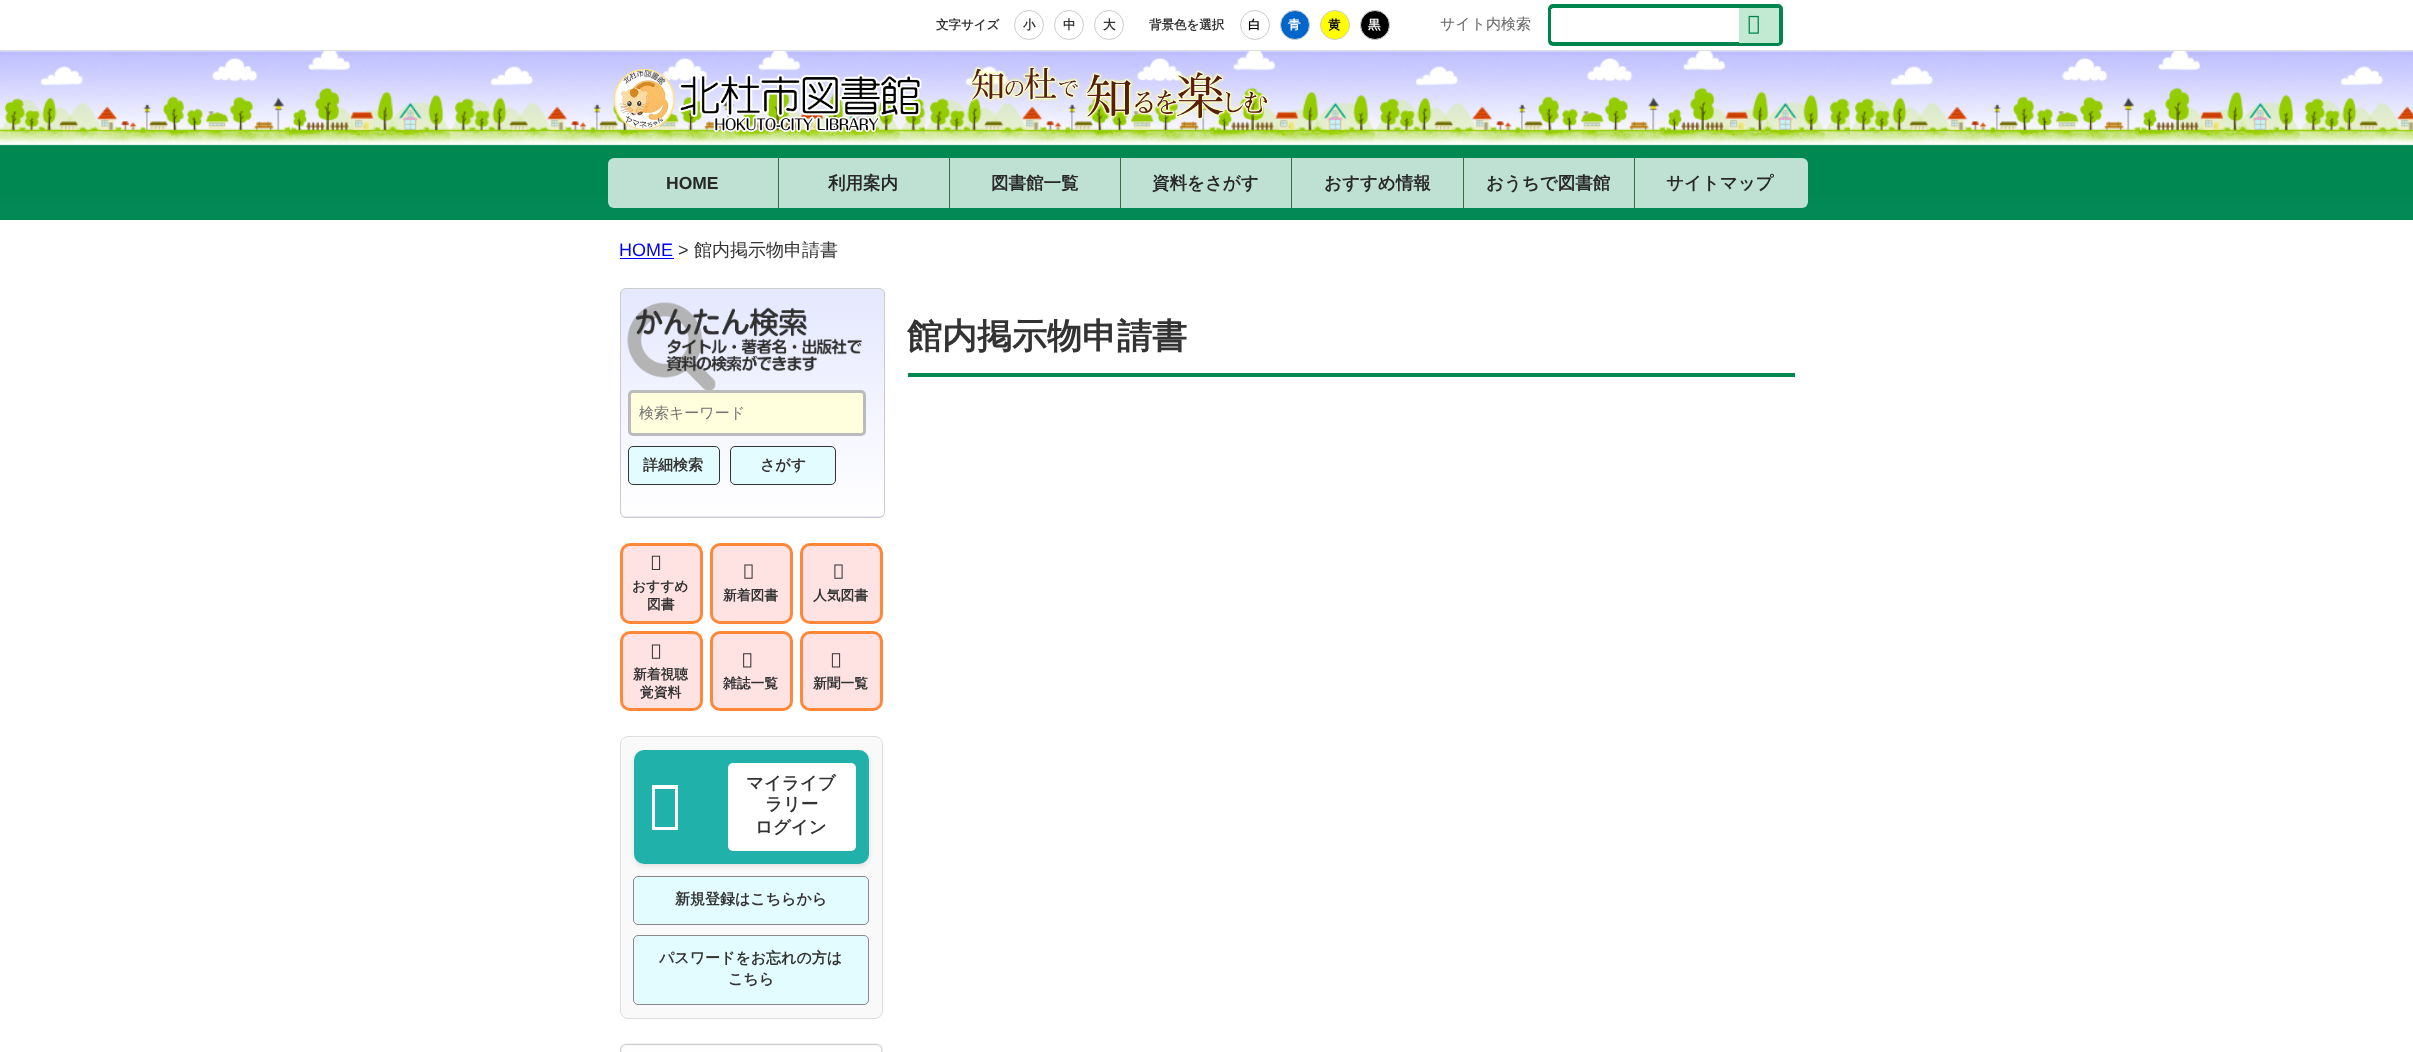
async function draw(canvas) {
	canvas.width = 2413;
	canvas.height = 1052;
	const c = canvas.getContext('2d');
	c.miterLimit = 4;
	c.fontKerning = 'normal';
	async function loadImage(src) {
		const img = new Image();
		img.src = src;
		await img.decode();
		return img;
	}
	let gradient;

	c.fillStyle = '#fff';
	c.fillRect(0, 0, 2413, 1052);
	c.fillStyle = '#ddd';
	c.fillRect(0, 50, 2413, 1);
	c.font = 'bold 12.5px WenQuanYi Zen Hei';
	c.fillStyle = '#333';
	c.fillText('文字サイズ', 936, 29);
	c.beginPath();
	c.arc(1029, 25, 14.5, 0, 2 * Math.PI);
	c.strokeStyle = '#ccc';
	c.stroke();
	c.fillText('小', 1023, 29);
	c.beginPath();
	c.arc(1069, 25, 14.5, 0, 2 * Math.PI);
	c.stroke();
	c.fillText('中', 1063, 29);
	c.beginPath();
	c.arc(1109, 25, 14.5, 0, 2 * Math.PI);
	c.stroke();
	c.fillText('大', 1103, 29);
	c.fillText('背景色を選択', 1149, 29);
	c.beginPath();
	c.arc(1255, 25, 14.5, 0, 2 * Math.PI);
	c.stroke();
	c.fillStyle = '#000';
	c.fillText('白', 1248, 29);
	c.fillStyle = '#06c';
	c.beginPath();
	c.arc(1295, 25, 14.5, 0, 2 * Math.PI);
	c.fill();
	c.stroke();
	c.fillStyle = '#fff';
	c.fillText('青', 1288, 29);
	c.fillStyle = '#ff0';
	c.beginPath();
	c.arc(1335, 25, 14.5, 0, 2 * Math.PI);
	c.fill();
	c.stroke();
	c.fillStyle = '#000';
	c.fillText('黄', 1328, 29);
	c.beginPath();
	c.arc(1375, 25, 14.5, 0, 2 * Math.PI);
	c.fill();
	c.stroke();
	c.fillStyle = '#fff';
	c.fillText('黒', 1368, 29);
	c.font = '500 15px WenQuanYi Zen Hei';
	c.fillStyle = '#666';
	c.fillText('サイト内検索', 1440, 29);
	c.beginPath();
	c.roundRect(1550, 6, 231, 38, 3);
	c.strokeStyle = '#00854e';
	c.lineWidth = 4;
	c.stroke();
	c.fillStyle = '#fff';
	c.fillRect(1551, 9, 1, 32);
	c.fillStyle = '#c2e9d1';
	c.beginPath();
	c.roundRect(1739, 8, 40, 35, [0, 1, 1, 0]);
	c.fill();
	c.drawImage(await loadImage('img1.png'), 1748, 15, 11, 19);
	c.drawImage(await loadImage('img2.png'), 0, 51, 2413, 169);
	c.drawImage(await loadImage('img3.png'), 613, 69, 309, 63);
	c.drawImage(await loadImage('img4.png'), 968, 65, 302, 57);
	c.fillStyle = '#bfe1d4';
	c.beginPath();
	c.roundRect(608, 158, 1200, 50, 6);
	c.fill();
	c.fillStyle = '#3a6b49';
	c.fillRect(778, 158, 1, 50);
	c.font = 'bold 17.5px Liberation Sans';
	c.fillStyle = '#282828';
	c.fillText('HOME', 666, 189);
	c.fillStyle = '#3a6b49';
	c.fillRect(949, 158, 1, 50);
	c.font = 'bold 17.5px WenQuanYi Zen Hei';
	c.fillStyle = '#282828';
	c.fillText('利用案内', 828, 189);
	c.fillStyle = '#3a6b49';
	c.fillRect(1120, 158, 1, 50);
	c.fillStyle = '#282828';
	c.fillText('図書館一覧', 991, 189);
	c.fillStyle = '#3a6b49';
	c.fillRect(1291, 158, 1, 50);
	c.fillStyle = '#282828';
	c.fillText('資料をさがす', 1152, 189);
	c.fillStyle = '#3a6b49';
	c.fillRect(1463, 158, 1, 50);
	c.fillStyle = '#282828';
	c.fillText('おすすめ情報', 1324, 189);
	c.fillStyle = '#3a6b49';
	c.fillRect(1634, 158, 1, 50);
	c.fillStyle = '#282828';
	c.fillText('おうちで図書館', 1486, 189);
	c.fillText('サイトマップ', 1666, 189);
	c.font = '18px Liberation Sans';
	c.fillStyle = '#00e';
	c.fillText('HOME', 619, 256);
	c.fillRect(620, 258, 54, 1);
	c.fillStyle = '#333';
	c.fillText('>', 678, 256);
	c.font = '500 18px WenQuanYi Zen Hei';
	c.fillText('館内掲示物申請書', 694, 256);
	c.fillStyle = '#008852';
	c.fillRect(908, 373, 887, 4);
	c.font = 'bold 35px WenQuanYi Zen Hei';
	c.fillStyle = '#333';
	c.fillText('館内掲示物申請書', 907, 348);
	c.save();
	c.beginPath();
	c.roundRect(620, 288, 265, 230, 6);
	c.clip();
	gradient = c.createLinearGradient(753, 289, 753, 516);
	gradient.addColorStop(0, '#e5e8ff');
	gradient.addColorStop(1, '#fff');
	c.fillStyle = gradient;
	c.fillRect(620, 289, 265, 227);
	gradient = c.createLinearGradient(753, 516, 753, 744);
	gradient.addColorStop(0, '#e5e8ff');
	gradient.addColorStop(1, '#fff');
	c.fillStyle = gradient;
	c.fillRect(620, 516, 265, 2);
	c.restore();
	c.beginPath();
	c.roundRect(620.5, 288.5, 264, 229, 5.5);
	c.strokeStyle = '#ccc';
	c.lineWidth = 1;
	c.stroke();
	c.drawImage(await loadImage('img5.png'), 627, 302, 235, 88);
	c.fillStyle = '#ffd';
	c.beginPath();
	c.roundRect(629.5, 391.5, 235, 43, 3.5);
	c.fill();
	c.strokeStyle = '#bbb';
	c.lineWidth = 3;
	c.stroke();
	c.font = '500 15px WenQuanYi Zen Hei';
	c.fillStyle = '#757575';
	c.fillText('検索キーワード', 639, 418);
	c.fillStyle = '#e3fcff';
	c.beginPath();
	c.roundRect(628.5, 446.5, 91, 38, 4.5);
	c.fill();
	c.strokeStyle = '#333';
	c.lineWidth = 1;
	c.stroke();
	c.font = 'bold 15px WenQuanYi Zen Hei';
	c.fillStyle = '#333';
	c.fillText('詳細検索', 643, 470);
	c.fillStyle = '#e3fcff';
	c.beginPath();
	c.roundRect(730.5, 446.5, 105, 38, 4.5);
	c.fill();
	c.stroke();
	c.fillStyle = '#333';
	c.fillText('さがす', 760, 470);
	c.fillStyle = '#ffe3e3';
	c.beginPath();
	c.roundRect(621.5, 544.5, 80, 78, 8.5);
	c.fill();
	c.strokeStyle = '#ff8738';
	c.lineWidth = 3;
	c.stroke();
	c.drawImage(await loadImage('img6.png'), 651, 555, 10, 15);
	c.font = 'bold 13.75px WenQuanYi Zen Hei';
	c.fillStyle = '#333';
	c.fillText('おすすめ', 632, 591);
	c.fillText('図書', 647, 609);
	c.fillStyle = '#ffe3e3';
	c.beginPath();
	c.roundRect(711.5, 544.5, 80, 78, 8.5);
	c.fill();
	c.stroke();
	c.drawImage(await loadImage('img7.png'), 744, 564, 9, 15);
	c.fillStyle = '#333';
	c.fillText('新着図書', 723, 600);
	c.fillStyle = '#ffe3e3';
	c.beginPath();
	c.roundRect(801.5, 544.5, 80, 78, 8.5);
	c.fill();
	c.stroke();
	c.drawImage(await loadImage('img7.png'), 834, 564, 9, 15);
	c.fillStyle = '#333';
	c.fillText('人気図書', 813, 600);
	c.fillStyle = '#ffe3e3';
	c.beginPath();
	c.roundRect(621.5, 632.5, 80, 77, 8.5);
	c.fill();
	c.stroke();
	c.drawImage(await loadImage('img8.png'), 651, 644, 10, 15);
	c.fillStyle = '#333';
	c.fillText('新着視聴', 633, 679);
	c.fillText('覚資料', 640, 697);
	c.fillStyle = '#ffe3e3';
	c.beginPath();
	c.roundRect(711.5, 632.5, 80, 77, 8.5);
	c.fill();
	c.stroke();
	c.drawImage(await loadImage('img9.png'), 743, 653, 9, 15);
	c.fillStyle = '#333';
	c.fillText('雑誌一覧', 723, 688);
	c.fillStyle = '#ffe3e3';
	c.beginPath();
	c.roundRect(801.5, 632.5, 80, 77, 8.5);
	c.fill();
	c.stroke();
	c.drawImage(await loadImage('img10.png'), 831, 653, 10, 15);
	c.fillStyle = '#333';
	c.fillText('新聞一覧', 813, 688);
	c.fillStyle = '#f9f9f9';
	c.beginPath();
	c.roundRect(620.5, 736.5, 262, 282, 7.5);
	c.fill();
	c.strokeStyle = '#ddd';
	c.lineWidth = 1;
	c.stroke();
	c.fillStyle = '#0000001a';
	c.filter = 'blur(2.5px)';
	c.beginPath();
	c.roundRect(634, 753, 235, 113, 10);
	c.fill();
	c.filter = 'none';
	c.fillStyle = '#20b2aa';
	c.beginPath();
	c.roundRect(634, 750, 235, 114, 10);
	c.fill();
	c.fillStyle = '#fff';
	c.beginPath();
	c.moveTo(652, 830);
	c.lineTo(652, 785);
	c.lineTo(678, 785);
	c.lineTo(678, 830);
	c.closePath();
	c.moveTo(655, 827);
	c.lineTo(675, 827);
	c.lineTo(675, 789);
	c.lineTo(655, 789);
	c.closePath();
	c.fill();
	c.beginPath();
	c.roundRect(728, 763, 128, 88, 5);
	c.fill();
	c.font = 'bold 17.5px WenQuanYi Zen Hei';
	c.fillStyle = '#333';
	for (const [text, x, y] of [
		['マイライブ', 746, 789],
		['ラリー', 765, 810],
		['ログイン', 755, 833],
	]) {
		c.fillText(text, x, y);
	}
	c.fillStyle = '#e3fcff';
	c.beginPath();
	c.roundRect(633.5, 876.5, 235, 48, 4.5);
	c.fill();
	c.strokeStyle = '#888';
	c.stroke();
	c.font = 'bold 15px WenQuanYi Zen Hei';
	c.fillStyle = '#333';
	c.fillText('新規登録はこちらから', 675, 904);
	c.fillStyle = '#e3fcff';
	c.beginPath();
	c.roundRect(633.5, 935.5, 235, 69, 4.5);
	c.fill();
	c.stroke();
	c.fillStyle = '#333';
	c.fillText('パスワードをお忘れの方は', 659, 963);
	c.fillText('こちら', 728, 984);
	c.drawImage(await loadImage('img11.png'), 620, 1043, 263, 9);
}

draw(document.querySelector('canvas'));
